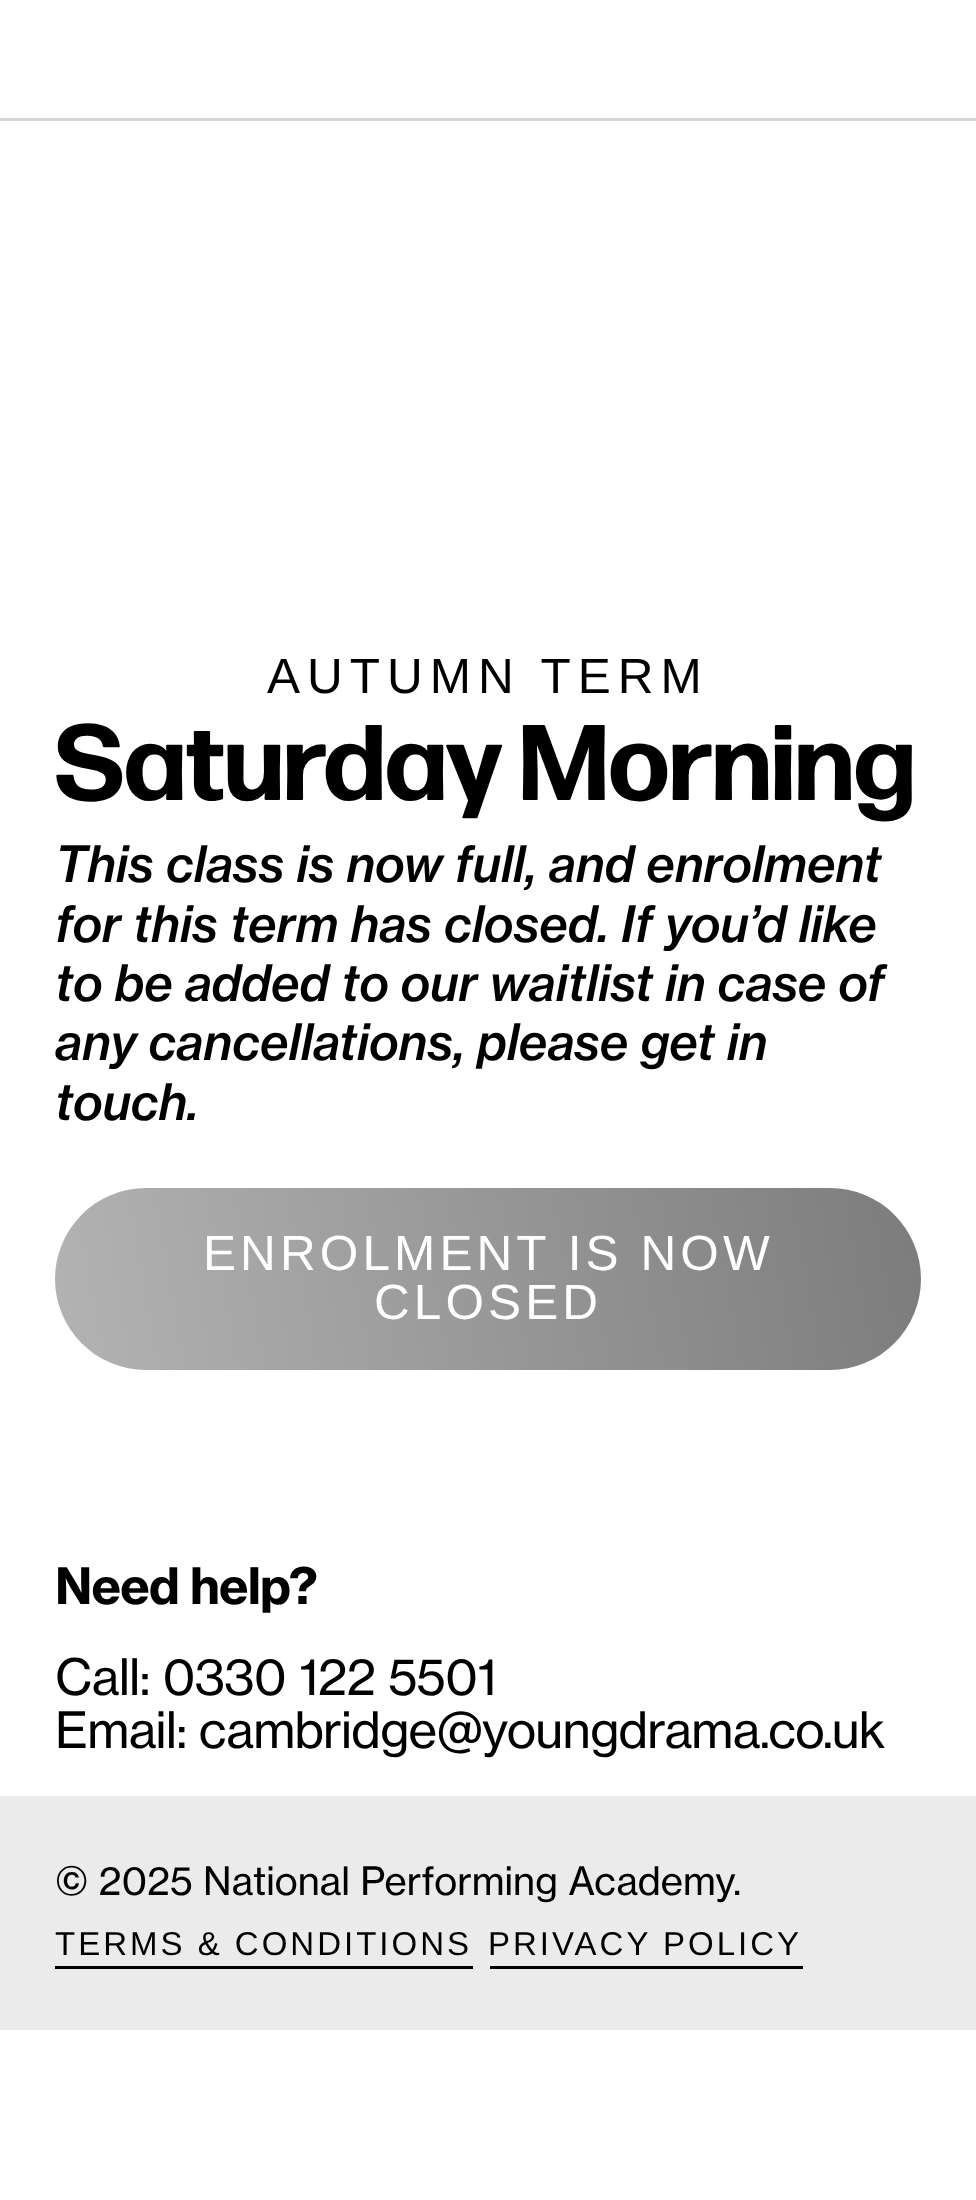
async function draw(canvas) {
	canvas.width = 976;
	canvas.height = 2200;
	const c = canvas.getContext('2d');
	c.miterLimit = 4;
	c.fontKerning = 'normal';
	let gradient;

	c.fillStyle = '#fff';
	c.fillRect(0, 0, 976, 2200);
	c.fillStyle = '#d5d5d5';
	c.fillRect(0, 118, 976, 3);
	c.letterSpacing = '7px';
	c.font = '49.5px Liberation Sans';
	c.fillStyle = '#000';
	c.fillText('AUTUMN TERM', 267, 693);
	c.letterSpacing = '0.25px';
	c.font = 'bold 107.25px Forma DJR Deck';
	c.fillText('Saturday Morning', 55, 800);
	c.letterSpacing = '0px';
	c.font = 'italic 500 49.5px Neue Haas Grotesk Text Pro';
	for (const [text, x, y] of [
		['This class is now full, and enrolment', 55, 882],
		['for this term has closed. If you’d like', 55, 942],
		['to be added to our waitlist in case of', 55, 1001],
		['any cancellations, please get in', 55, 1060],
		['touch.', 55, 1120],
	]) {
		c.fillText(text, x, y);
	}
	gradient = c.createLinearGradient(53, 1356, 924, 1202);
	gradient.addColorStop(0, '#b3b3b3');
	gradient.addColorStop(1, '#7c7c7c');
	c.fillStyle = gradient;
	c.beginPath();
	c.roundRect(55, 1188, 866, 182, 91);
	c.fill();
	c.letterSpacing = '4.1px';
	c.font = '49.5px Liberation Sans';
	c.fillStyle = '#fff';
	c.fillText('ENROLMENT IS NOW', 203, 1270);
	c.fillText('CLOSED', 374, 1319);
	c.letterSpacing = '-0.8px';
	c.font = 'bold 49.5px Neue Haas Grotesk Text Pro';
	c.fillStyle = '#000';
	c.fillText('Need help?', 55, 1604);
	c.wordSpacing = '0.5px';
	c.font = '49.5px Neue Haas Grotesk Text Pro';
	c.fillText('Call: 0330 122 55‍01', 55, 1695);
	c.wordSpacing = '0px';
	c.fillText('Email: cambridge@youngdrama.co.uk', 55, 1748);
	c.fillStyle = '#ebebeb';
	c.fillRect(0, 1796, 976, 234);
	c.letterSpacing = '0px';
	c.font = '38.5px Neue Haas Grotesk Text Pro';
	c.fillStyle = '#000';
	c.fillText('© 2025 National Performing Academy.', 55, 1895);
	c.fillRect(55, 1966, 418, 3);
	c.letterSpacing = '3px';
	c.font = '33px Liberation Sans';
	c.fillText('TERMS & CONDITIONS', 55, 1955);
	c.fillRect(490, 1966, 313, 3);
	c.fillText('PRIVACY POLICY', 488, 1955);
}

draw(document.querySelector('canvas'));
